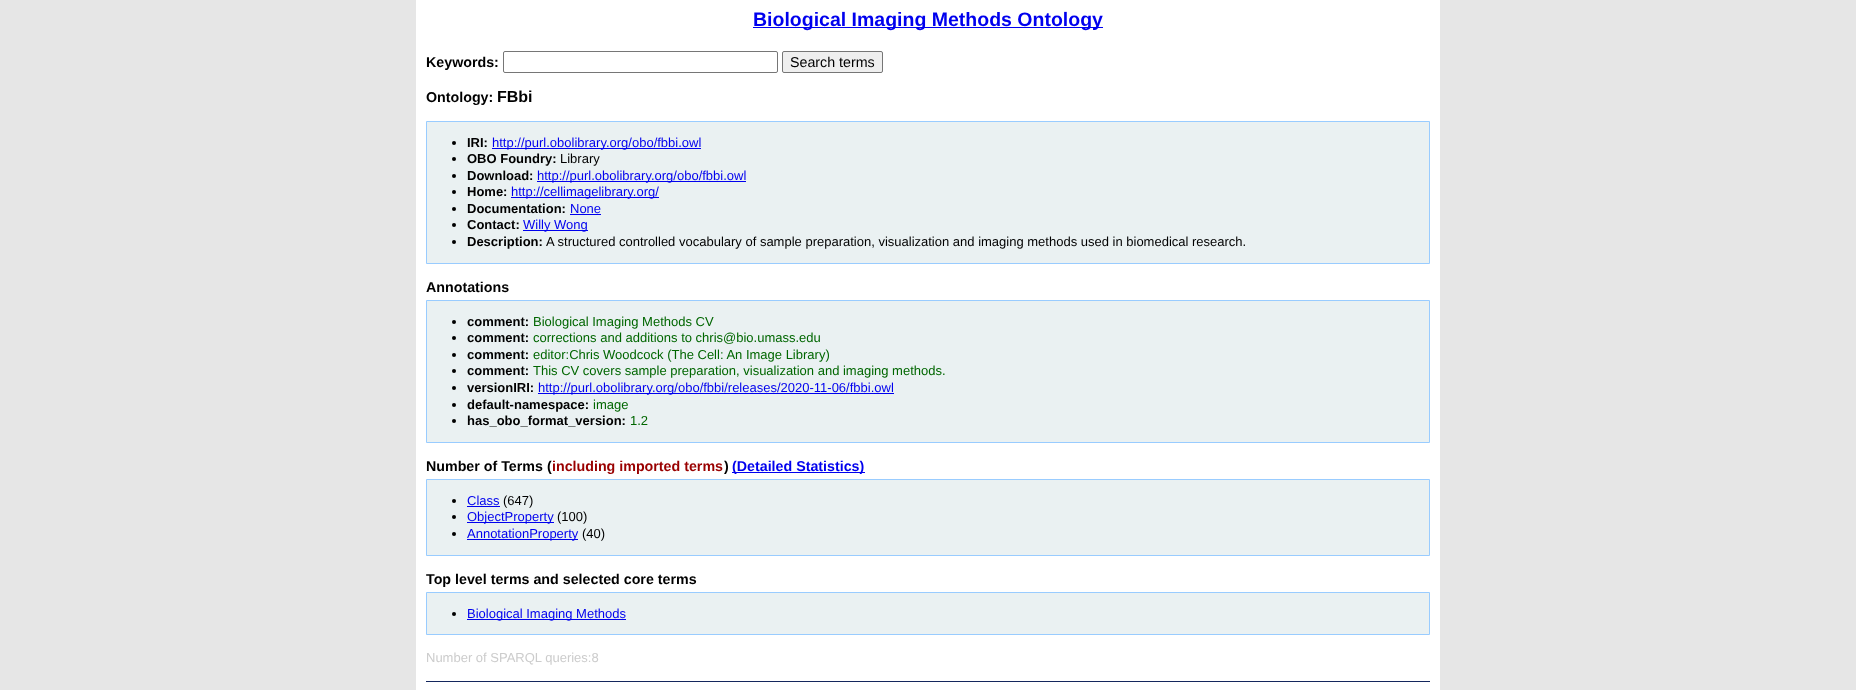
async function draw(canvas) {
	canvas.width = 1856;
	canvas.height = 690;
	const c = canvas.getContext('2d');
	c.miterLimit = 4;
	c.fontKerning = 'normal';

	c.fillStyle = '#e6e6e6';
	c.fillRect(0, 0, 1856, 690);
	c.fillStyle = '#fff';
	c.fillRect(416, 0, 1024, 690);
	c.fillStyle = '#00e';
	c.fillRect(753, 27, 350, 1);
	c.font = 'bold 19.5px Liberation Sans';
	c.fillText('Biological Imaging Methods Ontology', 753, 26);
	c.font = 'bold 14.25px Liberation Sans';
	c.fillStyle = '#000';
	c.fillText('Keywords:', 426, 67);
	c.beginPath();
	c.roundRect(503.5, 51.5, 274, 21, 1.5);
	c.strokeStyle = '#767676';
	c.stroke();
	c.fillStyle = '#efefef';
	c.beginPath();
	c.roundRect(782.5, 51.5, 100, 21, 1.5);
	c.fill();
	c.stroke();
	c.font = '14.25px Liberation Sans';
	c.fillStyle = '#000';
	c.fillText('Search terms', 790, 67);
	c.font = 'bold 14.25px Liberation Sans';
	c.fillText('Ontology:', 426, 102);
	c.font = 'bold 16px Liberation Sans';
	c.fillText('FBbi', 497, 102);
	c.fillStyle = '#eaf1f2';
	c.beginPath();
	c.rect(426.5, 121.5, 1003, 142);
	c.fill();
	c.strokeStyle = '#9cf';
	c.stroke();
	c.fillStyle = '#000';
	c.beginPath();
	c.arc(454, 143, 2, 0, 2 * Math.PI);
	c.fill();
	c.font = 'bold 13px Liberation Sans';
	c.fillText('IRI:', 467, 147);
	c.fillStyle = '#00e';
	c.fillRect(492, 148, 209, 1);
	c.font = '13px Liberation Sans';
	c.fillText('http://purl.obolibrary.org/obo/fbbi.owl', 492, 147);
	c.fillStyle = '#000';
	c.beginPath();
	c.arc(454, 159, 2, 0, 2 * Math.PI);
	c.fill();
	c.font = 'bold 13px Liberation Sans';
	c.fillText('OBO Foundry:', 467, 163);
	c.font = '13px Liberation Sans';
	c.fillText('Library', 560, 163);
	c.beginPath();
	c.arc(454, 176, 2, 0, 2 * Math.PI);
	c.fill();
	c.font = 'bold 13px Liberation Sans';
	c.fillText('Download:', 467, 180);
	c.fillStyle = '#00e';
	c.fillRect(537, 181, 209, 1);
	c.font = '13px Liberation Sans';
	c.fillText('http://purl.obolibrary.org/obo/fbbi.owl', 537, 180);
	c.fillStyle = '#000';
	c.beginPath();
	c.arc(454, 192, 2, 0, 2 * Math.PI);
	c.fill();
	c.font = 'bold 13px Liberation Sans';
	c.fillText('Home:', 467, 196);
	c.fillStyle = '#00e';
	c.fillRect(511, 197, 148, 1);
	c.font = '13px Liberation Sans';
	c.fillText('http://cellimagelibrary.org/', 511, 196);
	c.fillStyle = '#000';
	c.beginPath();
	c.arc(454, 209, 2, 0, 2 * Math.PI);
	c.fill();
	c.font = 'bold 13px Liberation Sans';
	c.fillText('Documentation:', 467, 213);
	c.font = '13px Liberation Sans';
	c.fillStyle = '#00e';
	c.fillText('None', 570, 213);
	c.fillRect(570, 214, 31, 1);
	c.fillStyle = '#000';
	c.beginPath();
	c.arc(454, 225, 2, 0, 2 * Math.PI);
	c.fill();
	c.font = 'bold 13px Liberation Sans';
	c.fillText('Contact:', 467, 229);
	c.fillStyle = '#00e';
	c.fillRect(523, 230, 65, 1);
	c.font = '13px Liberation Sans';
	c.fillText('Willy Wong', 523, 229);
	c.fillStyle = '#000';
	c.beginPath();
	c.arc(454, 242, 2, 0, 2 * Math.PI);
	c.fill();
	c.font = 'bold 13px Liberation Sans';
	c.fillText('Description:', 467, 246);
	c.font = '13px Liberation Sans';
	c.fillText('A structured controlled vocabulary of sample preparation, visualization and imaging methods used in biomedical research.', 546, 246);
	c.font = 'bold 14.25px Liberation Sans';
	c.fillText('Annotations', 426, 292);
	c.fillStyle = '#eaf1f2';
	c.beginPath();
	c.rect(426.5, 300.5, 1003, 142);
	c.fill();
	c.stroke();
	c.fillStyle = '#000';
	c.beginPath();
	c.arc(454, 322, 2, 0, 2 * Math.PI);
	c.fill();
	c.font = 'bold 13px Liberation Sans';
	c.fillText('comment:', 467, 326);
	c.font = '13px Liberation Sans';
	c.fillStyle = '#060';
	c.fillText('Biological Imaging Methods CV', 533, 326);
	c.fillStyle = '#000';
	c.beginPath();
	c.arc(454, 338, 2, 0, 2 * Math.PI);
	c.fill();
	c.font = 'bold 13px Liberation Sans';
	c.fillText('comment:', 467, 342);
	c.font = '13px Liberation Sans';
	c.fillStyle = '#060';
	c.fillText('corrections and additions to chris@bio.umass.edu', 533, 342);
	c.fillStyle = '#000';
	c.beginPath();
	c.arc(454, 355, 2, 0, 2 * Math.PI);
	c.fill();
	c.font = 'bold 13px Liberation Sans';
	c.fillText('comment:', 467, 359);
	c.font = '13px Liberation Sans';
	c.fillStyle = '#060';
	c.fillText('editor:Chris Woodcock (The Cell: An Image Library)', 533, 359);
	c.fillStyle = '#000';
	c.beginPath();
	c.arc(454, 371, 2, 0, 2 * Math.PI);
	c.fill();
	c.font = 'bold 13px Liberation Sans';
	c.fillText('comment:', 467, 375);
	c.font = '13px Liberation Sans';
	c.fillStyle = '#060';
	c.fillText('This CV covers sample preparation, visualization and imaging methods.', 533, 375);
	c.fillStyle = '#000';
	c.beginPath();
	c.arc(454, 388, 2, 0, 2 * Math.PI);
	c.fill();
	c.font = 'bold 13px Liberation Sans';
	c.fillText('versionIRI:', 467, 392);
	c.fillStyle = '#00e';
	c.fillRect(538, 393, 356, 1);
	c.font = '13px Liberation Sans';
	c.fillText('http://purl.obolibrary.org/obo/fbbi/releases/2020-11-06/fbbi.owl', 538, 392);
	c.fillStyle = '#000';
	c.beginPath();
	c.arc(454, 405, 2, 0, 2 * Math.PI);
	c.fill();
	c.font = 'bold 13px Liberation Sans';
	c.fillText('default-namespace:', 467, 409);
	c.font = '13px Liberation Sans';
	c.fillStyle = '#060';
	c.fillText('image', 593, 409);
	c.fillStyle = '#000';
	c.beginPath();
	c.arc(454, 421, 2, 0, 2 * Math.PI);
	c.fill();
	c.font = 'bold 13px Liberation Sans';
	c.fillText('has_obo_format_version:', 467, 425);
	c.font = '13px Liberation Sans';
	c.fillStyle = '#060';
	c.fillText('1.2', 630, 425);
	c.font = 'bold 14.25px Liberation Sans';
	c.fillStyle = '#000';
	c.fillText('Number of Terms (', 426, 471);
	c.fillStyle = '#900';
	c.fillText('including imported terms', 552, 471);
	c.fillStyle = '#000';
	c.fillText(')', 724, 471);
	c.fillStyle = '#00e';
	c.fillRect(732, 472, 133, 1);
	c.fillText('(Detailed Statistics)', 732, 471);
	c.fillStyle = '#eaf1f2';
	c.beginPath();
	c.rect(426.5, 479.5, 1003, 76);
	c.fill();
	c.stroke();
	c.fillStyle = '#000';
	c.beginPath();
	c.arc(454, 501, 2, 0, 2 * Math.PI);
	c.fill();
	c.font = '13px Liberation Sans';
	c.fillStyle = '#00e';
	c.fillText('Class', 467, 505);
	c.fillRect(467, 506, 33, 1);
	c.fillStyle = '#000';
	c.fillText('(647)', 503, 505);
	c.beginPath();
	c.arc(454, 517, 2, 0, 2 * Math.PI);
	c.fill();
	c.fillStyle = '#00e';
	c.fillRect(467, 522, 87, 1);
	c.fillText('ObjectProperty', 467, 521);
	c.fillStyle = '#000';
	c.fillText('(100)', 557, 521);
	c.beginPath();
	c.arc(454, 534, 2, 0, 2 * Math.PI);
	c.fill();
	c.fillStyle = '#00e';
	c.fillRect(467, 539, 111, 1);
	c.fillText('AnnotationProperty', 467, 538);
	c.fillStyle = '#000';
	c.fillText('(40)', 582, 538);
	c.font = 'bold 14.25px Liberation Sans';
	c.fillText('Top level terms and selected core terms', 426, 584);
	c.fillStyle = '#eaf1f2';
	c.beginPath();
	c.rect(426.5, 592.5, 1003, 42);
	c.fill();
	c.stroke();
	c.fillStyle = '#000';
	c.beginPath();
	c.arc(454, 614, 2, 0, 2 * Math.PI);
	c.fill();
	c.fillStyle = '#00e';
	c.fillRect(467, 619, 159, 1);
	c.font = '13px Liberation Sans';
	c.fillText('Biological Imaging Methods', 467, 618);
	c.fillStyle = '#ccc';
	c.fillText('Number of SPARQL queries:8', 426, 662);
	c.fillStyle = '#14275d';
	c.fillRect(426, 681, 1004, 1);
}

draw(document.querySelector('canvas'));
